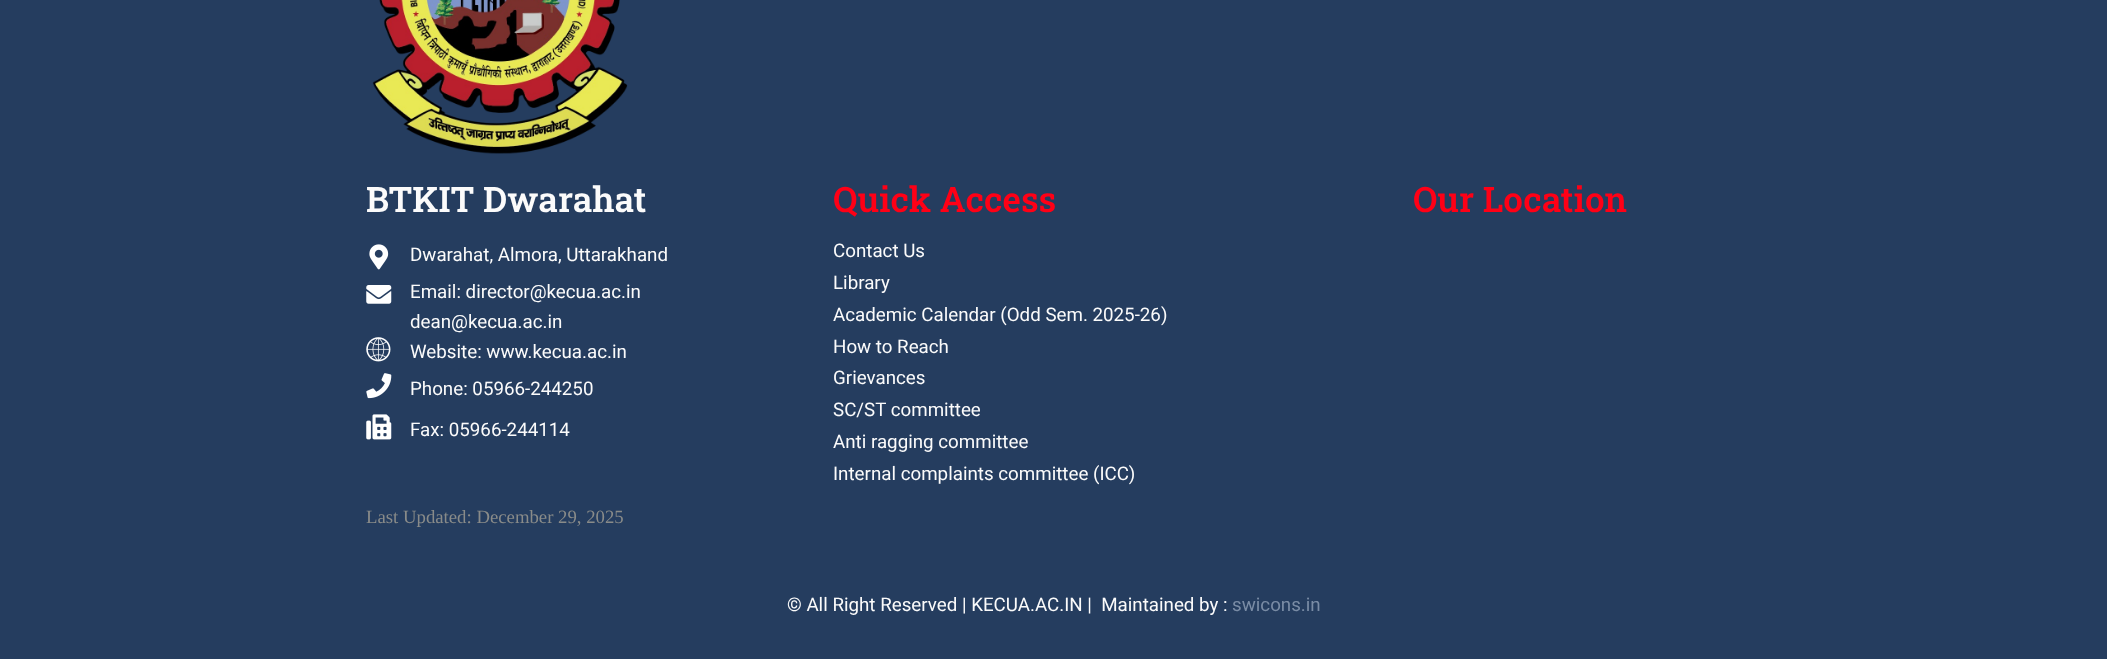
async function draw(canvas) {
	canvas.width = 2107;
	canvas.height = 659;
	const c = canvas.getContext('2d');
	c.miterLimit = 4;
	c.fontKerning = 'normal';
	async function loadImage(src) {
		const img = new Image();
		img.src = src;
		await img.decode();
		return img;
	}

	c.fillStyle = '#253d5f';
	c.fillRect(0, 0, 2107, 659);
	c.drawImage(await loadImage('img1.png'), 372, 0, 256, 154);
	c.font = '600 35px Roboto Slab';
	c.fillStyle = '#fbfbfb';
	c.fillText('BTKIT Dwarahat', 366, 212);
	c.drawImage(await loadImage('img2.png'), 369, 244, 20, 26);
	c.font = '18.75px Roboto';
	c.fillText('Dwarahat, Almora, Uttarakhand', 410, 261);
	c.drawImage(await loadImage('img3.png'), 366, 285, 26, 19);
	c.fillText('Email: director@kecua.ac.in', 410, 298);
	c.fillText('dean@kecua.ac.in', 410, 328);
	c.drawImage(await loadImage('img4.png'), 366, 337, 25, 25);
	c.fillText('Website: www.kecua.ac.in', 410, 358);
	c.drawImage(await loadImage('img5.png'), 366, 373, 26, 26);
	c.fillText('Phone: 05966-244250', 410, 395);
	c.drawImage(await loadImage('img6.png'), 366, 414, 26, 26);
	c.fillText('Fax: 05966-244114', 410, 436);
	c.font = '18.75px Liberation Serif';
	c.fillStyle = '#898b89';
	c.fillText('Last Updated: December 29, 2025', 366, 523);
	c.font = '600 35px Roboto Slab';
	c.fillStyle = '#ff0016';
	c.fillText('Quick Access', 833, 212);
	c.font = '18.75px Roboto';
	c.fillStyle = '#fbfbfb';
	for (const [text, x, y] of [
		['Contact Us', 833, 257],
		['Library', 833, 289],
		['Academic Calendar (Odd Sem. 2025-26)', 833, 321],
		['How to Reach', 833, 353],
		['Grievances', 833, 384],
		['SC/ST committee', 833, 416],
		['Anti ragging committee', 833, 448],
		['Internal complaints committee (ICC)', 833, 480],
	]) {
		c.fillText(text, x, y);
	}
	c.font = '600 35px Roboto Slab';
	c.fillStyle = '#ff0016';
	c.fillText('Our Location', 1413, 212);
	c.font = '18.75px Roboto';
	c.fillStyle = '#fbfbfb';
	c.fillText('© All Right Reserved | KECUA.AC.IN |  Maintained by :', 787, 611);
	c.fillStyle = '#7a8ca5';
	c.fillText('swicons.in', 1232, 611);
}

draw(document.querySelector('canvas'));
